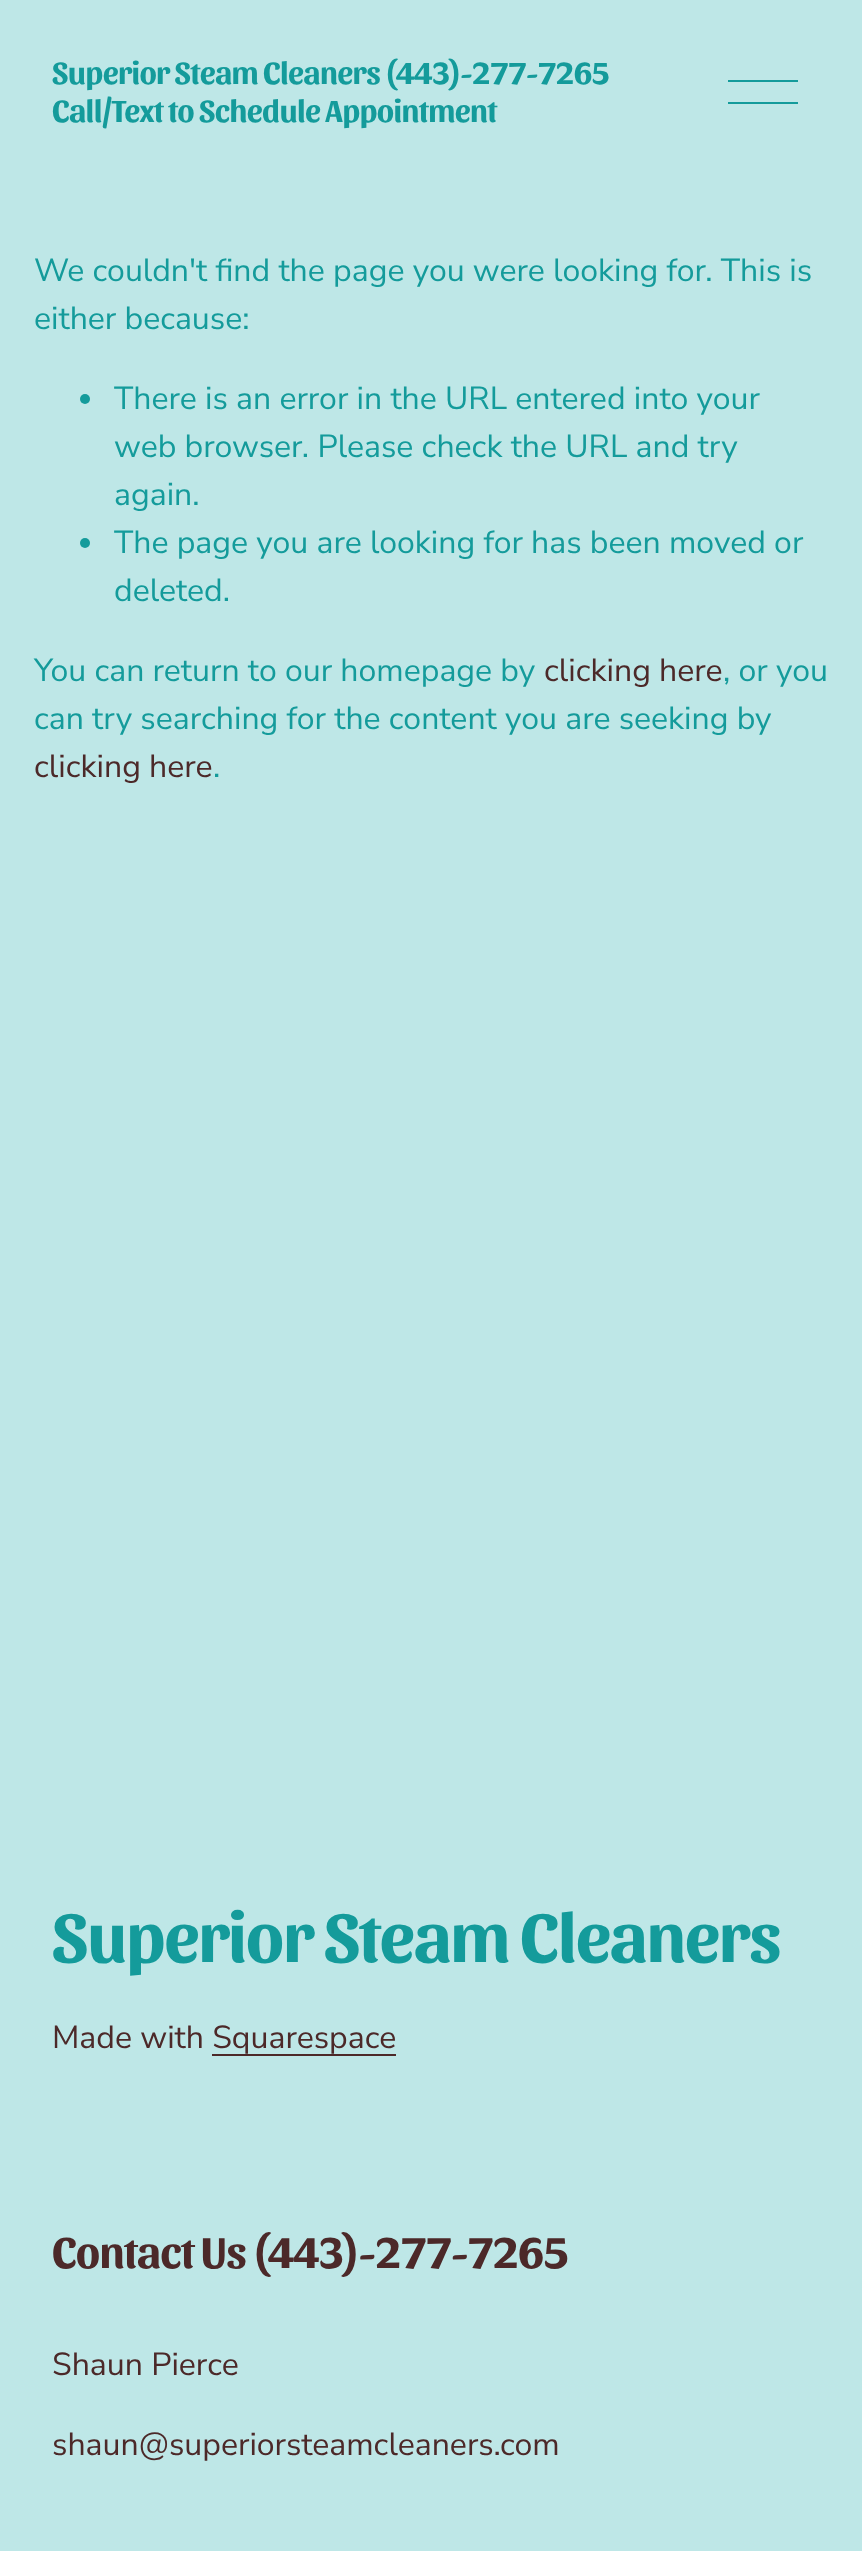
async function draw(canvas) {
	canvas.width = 862;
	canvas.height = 2551;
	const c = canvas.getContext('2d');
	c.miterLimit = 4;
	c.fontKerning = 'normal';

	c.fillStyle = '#bee7e7';
	c.fillRect(0, 0, 862, 2551);
	c.letterSpacing = '-0.65px';
	c.font = 'bold 32px Sansita';
	c.fillStyle = '#149b9b';
	c.fillText('Superior Steam Cleaners (443)-277-7265', 52, 84);
	c.fillText('Call/Text to Schedule Appointment', 52, 122);
	c.fillRect(728, 80, 70, 2);
	c.fillRect(728, 102, 70, 2);
	c.letterSpacing = '0px';
	c.font = '32px Nunito Sans';
	c.fillText('We couldn\'t find the page you were looking for. This is', 34, 281);
	c.fillText('either because:', 34, 329);
	c.beginPath();
	c.arc(85, 399, 5, 0, 2 * Math.PI);
	c.fill();
	for (const [text, x, y] of [
		['There is an error in the URL entered into your', 114, 409],
		['web browser. Please check the URL and try', 114, 457],
		['again.', 114, 505],
	]) {
		c.fillText(text, x, y);
	}
	c.beginPath();
	c.arc(85, 543, 5, 0, 2 * Math.PI);
	c.fill();
	for (const [text, x, y] of [
		['The page you are looking for has been moved or', 114, 553],
		['deleted.', 114, 601],
		['You can return to our homepage by', 34, 681],
	]) {
		c.fillText(text, x, y);
	}
	c.fillStyle = '#4c2929';
	c.fillText('clicking here', 544, 681);
	c.fillStyle = '#149b9b';
	c.fillText(', or you', 723, 681);
	c.fillText('can try searching for the content you are seeking by', 34, 729);
	c.fillStyle = '#4c2929';
	c.fillText('clicking here', 34, 777);
	c.fillStyle = '#149b9b';
	c.fillText('.', 213, 777);
	c.letterSpacing = '-1.4px';
	c.font = 'bold 70.9px Sansita';
	c.fillText('Superior Steam Cleaners', 52, 1962);
	c.letterSpacing = '0px';
	c.font = '32px Nunito Sans';
	c.fillStyle = '#4c2929';
	c.fillText('Made with Squarespace', 52, 2048);
	c.fillRect(212, 2054, 184, 2);
	c.letterSpacing = '-0.9px';
	c.font = 'bold 45px Sansita';
	c.fillText('Contact Us (443)-277-7265', 52, 2268);
	c.letterSpacing = '0px';
	c.font = '32px Nunito Sans';
	c.fillText('Shaun Pierce', 52, 2375);
	c.fillText('shaun@superiorsteamcleaners.com', 52, 2455);
}

draw(document.querySelector('canvas'));
